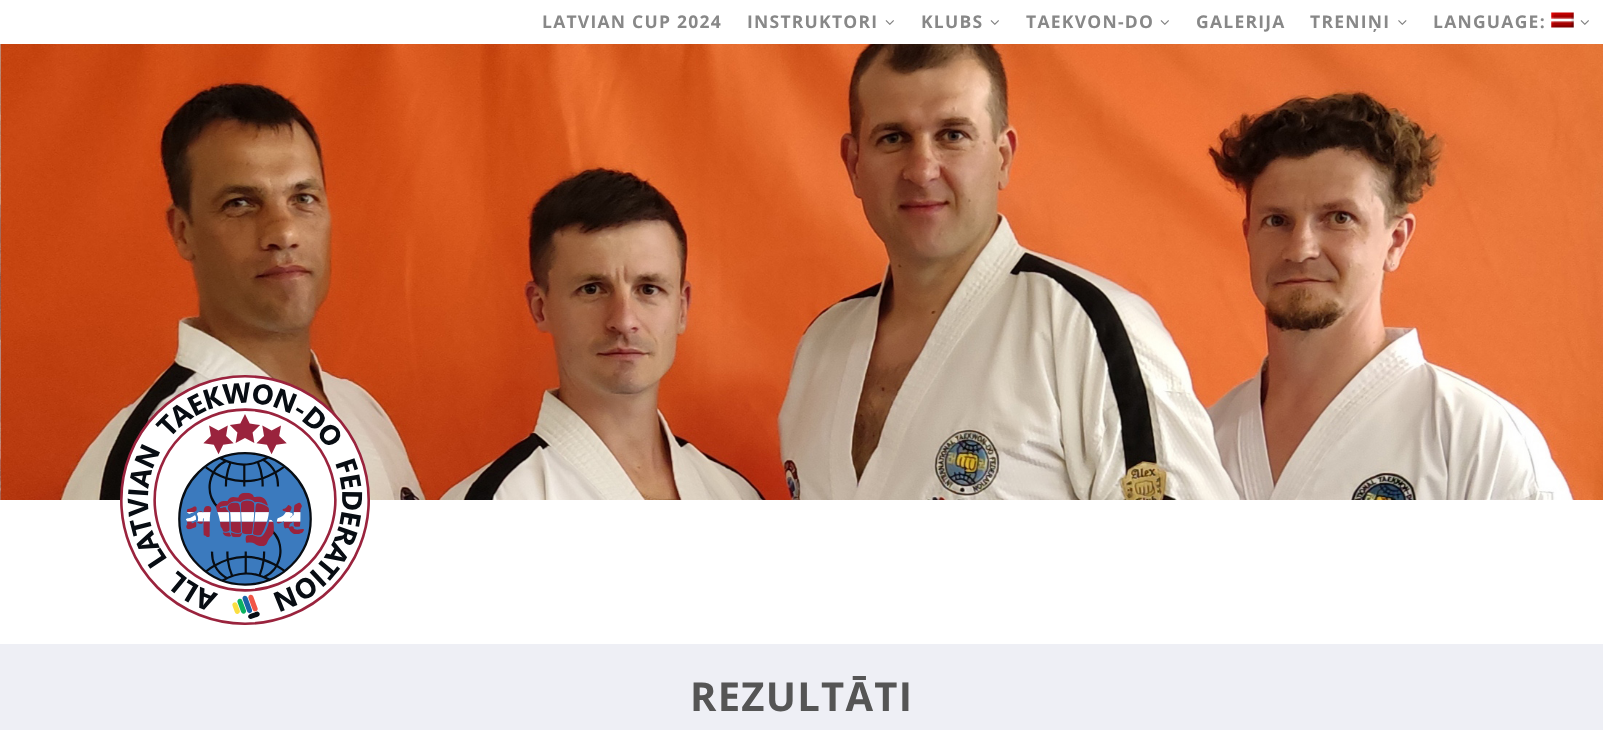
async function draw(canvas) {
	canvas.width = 1603;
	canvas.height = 730;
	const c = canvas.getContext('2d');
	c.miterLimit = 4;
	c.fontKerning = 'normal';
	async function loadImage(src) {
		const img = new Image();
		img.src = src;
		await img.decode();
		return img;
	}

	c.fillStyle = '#fff';
	c.fillRect(0, 0, 1603, 730);
	c.letterSpacing = '1.25px';
	c.font = 'bold 17.5px Open Sans';
	c.fillStyle = '#888';
	c.fillText('LATVIAN CUP 2024', 542, 28);
	c.fillText('INSTRUKTORI', 747, 28);
	c.drawImage(await loadImage('img1.png'), 885, 20, 9, 5);
	c.fillText('KLUBS', 921, 28);
	c.drawImage(await loadImage('img1.png'), 990, 20, 9, 5);
	c.fillText('TAEKVON-DO', 1026, 28);
	c.drawImage(await loadImage('img1.png'), 1160, 20, 9, 5);
	c.fillText('GALERIJA', 1196, 28);
	c.fillText('TRENIŅI', 1310, 28);
	c.drawImage(await loadImage('img2.png'), 1398, 20, 9, 5);
	c.fillText('LANGUAGE:', 1433, 28);
	c.drawImage(await loadImage('img3.png'), 1551, 12, 23, 16);
	c.drawImage(await loadImage('img1.png'), 1580, 20, 9, 5);
	c.drawImage(await loadImage('img5.png'), 0, 44, 1, 456);
	c.drawImage(await loadImage('img6.png'), 0, 44, 1, 456);
	c.drawImage(await loadImage('img7.png'), 0, 44, 1, 456);
	c.drawImage(await loadImage('img8.png'), 0, 44, 1603, 456);
	c.drawImage(await loadImage('img4.png'), 120, 375, 250, 250);
	c.fillStyle = '#eeeff5';
	c.fillRect(0, 644, 1603, 86);
	c.font = 'bold 40px Open Sans';
	c.fillStyle = '#555';
	c.fillText('REZULTĀTI', 690, 711);
}

draw(document.querySelector('canvas'));
